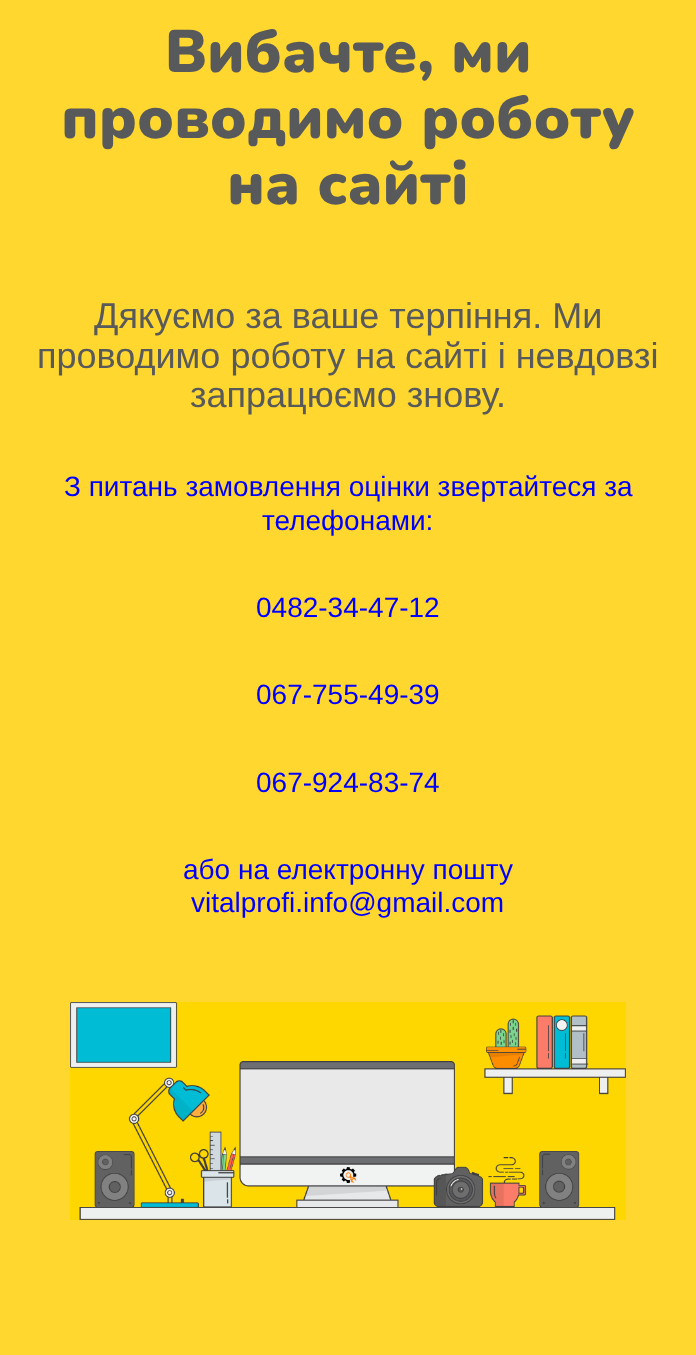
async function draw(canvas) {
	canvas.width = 696;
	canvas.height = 1355;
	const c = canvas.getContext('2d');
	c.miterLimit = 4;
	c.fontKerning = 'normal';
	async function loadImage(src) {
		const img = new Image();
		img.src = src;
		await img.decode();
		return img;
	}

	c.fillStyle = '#ffd72f';
	c.fillRect(0, 0, 696, 1355);
	c.font = '200 60px Nunito';
	c.fillStyle = '#58595b';
	for (const [text, x, y] of [
		['Вибачте, ми', 165, 72],
		['проводимо роботу', 61, 138],
		['на сайті', 227, 204],
	]) {
		c.fillText(text, x, y);
	}
	c.font = '36px Liberation Sans';
	for (const [text, x, y] of [
		['Дякуємо за ваше терпіння. Ми', 94, 328],
		['проводимо роботу на сайті і невдовзі', 37, 368],
		['запрацюємо знову.', 190, 407],
	]) {
		c.fillText(text, x, y);
	}
	c.font = '28px Liberation Sans';
	c.fillStyle = '#00f';
	for (const [text, x, y] of [
		['З питань замовлення оцінки звертайтеся за', 64, 496],
		['телефонами:', 262, 530],
		['0482-34-47-12', 256, 617],
		['067-755-49-39', 256, 704],
		['067-924-83-74', 256, 792],
		['або на електронну пошту', 183, 879],
		['vitalprofi.info@gmail.com', 191, 912],
	]) {
		c.fillText(text, x, y);
	}
	c.drawImage(await loadImage('img1.png'), 70, 1002, 556, 218);
}

draw(document.querySelector('canvas'));
